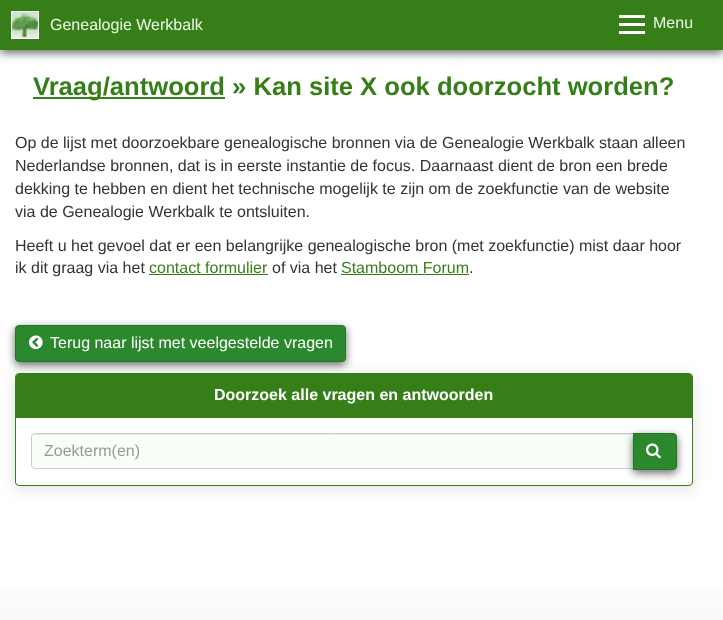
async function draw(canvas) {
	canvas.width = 723;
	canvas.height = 620;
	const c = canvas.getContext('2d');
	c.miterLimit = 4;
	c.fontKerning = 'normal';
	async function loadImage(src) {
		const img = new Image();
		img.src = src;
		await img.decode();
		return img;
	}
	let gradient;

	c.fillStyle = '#fff';
	c.fillRect(0, 0, 723, 620);
	c.fillStyle = '#323232ba';
	c.filter = 'blur(5px)';
	c.beginPath();
	c.rect(0, 3, 723, 50);
	c.fill();
	c.filter = 'none';
	c.fillStyle = '#367e18';
	c.fillRect(0, 0, 723, 50);
	c.drawImage(await loadImage('img1.png'), 12, 12, 26, 26);
	c.strokeStyle = '#fff';
	c.strokeRect(11.5, 11.5, 27, 27);
	c.font = '16px Liberation Sans';
	c.fillStyle = '#edfae7';
	c.fillText('Genealogie Werkbalk', 50, 30);
	for (const [x, y, w, h, color] of [
		[619, 31, 26, 3, '#fff'],
		[619, 15, 26, 3, '#fff'],
		[619, 23, 26, 3, '#fff'],
	]) {
		c.fillStyle = color;
		c.fillRect(x, y, w, h);
	}
	c.fillStyle = '#edfae7';
	c.fillText('Menu', 653, 28);
	c.fillStyle = '#367e18';
	c.fillRect(33, 97, 192, 2);
	c.font = 'bold 25.6px Liberation Sans';
	c.fillText('Vraag/antwoord » Kan site X ook doorzocht worden?', 33, 95);
	c.font = '16px Liberation Sans';
	c.fillStyle = '#333';
	for (const [text, x, y] of [
		['Op de lijst met doorzoekbare genealogische bronnen via de Genealogie Werkbalk staan alleen', 15, 148],
		['Nederlandse bronnen, dat is in eerste instantie de focus. Daarnaast dient de bron een brede', 15, 171],
		['dekking te hebben en dient het technische mogelijk te zijn om de zoekfunctie van de website', 15, 194],
		['via de Genealogie Werkbalk te ontsluiten.', 15, 217],
		['Heeft u het gevoel dat er een belangrijke genealogische bron (met zoekfunctie) mist daar hoor', 15, 251],
		['ik dit graag via het', 15, 273],
	]) {
		c.fillText(text, x, y);
	}
	c.fillStyle = '#367e18';
	c.fillText('contact formulier', 149, 273);
	c.fillRect(149, 274, 119, 1);
	c.fillStyle = '#333';
	c.fillText('of via het', 272, 273);
	c.fillStyle = '#367e18';
	c.fillText('Stamboom Forum', 341, 273);
	c.fillRect(341, 274, 128, 1);
	c.fillStyle = '#333';
	c.fillText('.', 469, 273);
	c.fillStyle = '#323232ba';
	c.filter = 'blur(4px)';
	c.beginPath();
	c.roundRect(15, 328, 331, 37, 4);
	c.fill();
	c.filter = 'none';
	c.fillStyle = '#2c882c';
	c.beginPath();
	c.roundRect(15.5, 325.5, 330, 36, 3.5);
	c.fill();
	c.strokeStyle = '#267526';
	c.stroke();
	c.drawImage(await loadImage('img2.png'), 29, 335, 14, 15);
	c.fillStyle = '#fff';
	c.fillText('Terug naar lijst met veelgestelde vragen', 50, 348);
	c.fillStyle = '#0000001a';
	c.filter = 'blur(7.5px)';
	c.beginPath();
	c.roundRect(14, 375, 680, 115, 5);
	c.fill();
	c.filter = 'none';
	c.fillStyle = '#fff';
	c.beginPath();
	c.roundRect(15.5, 373.5, 677, 112, 3.5);
	c.fill();
	c.strokeStyle = '#367e18';
	c.stroke();
	c.fillStyle = '#367e18';
	c.beginPath();
	c.roundRect(16, 374, 676, 44, [3, 3, 0, 0]);
	c.fill();
	c.font = 'bold 16px Liberation Sans';
	c.fillStyle = '#fff';
	c.fillText('Doorzoek alle vragen en antwoorden', 214, 400);
	c.fillStyle = '#f8fff8';
	c.beginPath();
	c.roundRect(31, 433, 603, 36, [4, 0, 0, 4]);
	c.fill();
	c.fillStyle = '#e5ece5';
	c.beginPath();
	c.moveTo(35, 435);
	c.lineTo(633, 435);
	c.lineTo(633, 434);
	c.lineTo(35, 434);
	c.bezierCurveTo(33, 434, 32, 435, 32, 437);
	c.lineTo(32, 438);
	c.bezierCurveTo(32, 436, 33, 435, 35, 435);
	c.closePath();
	c.fill();
	c.beginPath();
	c.roundRect(31.5, 433.5, 602, 35, [3.5, 0, 0, 3.5]);
	c.strokeStyle = '#ccc';
	c.stroke();
	c.font = '16px Liberation Sans';
	c.fillStyle = '#999';
	c.fillText('Zoekterm(en)', 44, 456);
	c.fillStyle = '#323232ba';
	c.filter = 'blur(4px)';
	c.beginPath();
	c.roundRect(633, 436, 44, 37, 4);
	c.fill();
	c.filter = 'none';
	c.fillStyle = '#2c882c';
	c.beginPath();
	c.roundRect(633.5, 433.5, 43, 36, [0, 3.5, 3.5, 0]);
	c.fill();
	c.strokeStyle = '#267526';
	c.stroke();
	c.drawImage(await loadImage('img3.png'), 646, 443, 15, 16);
	gradient = c.createLinearGradient(362, 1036, 362, 568);
	gradient.addColorStop(0, '#c8c8c8');
	gradient.addColorStop(1, '#fff');
	c.fillStyle = gradient;
	c.fillRect(0, 589, 723, 31);
}

draw(document.querySelector('canvas'));
